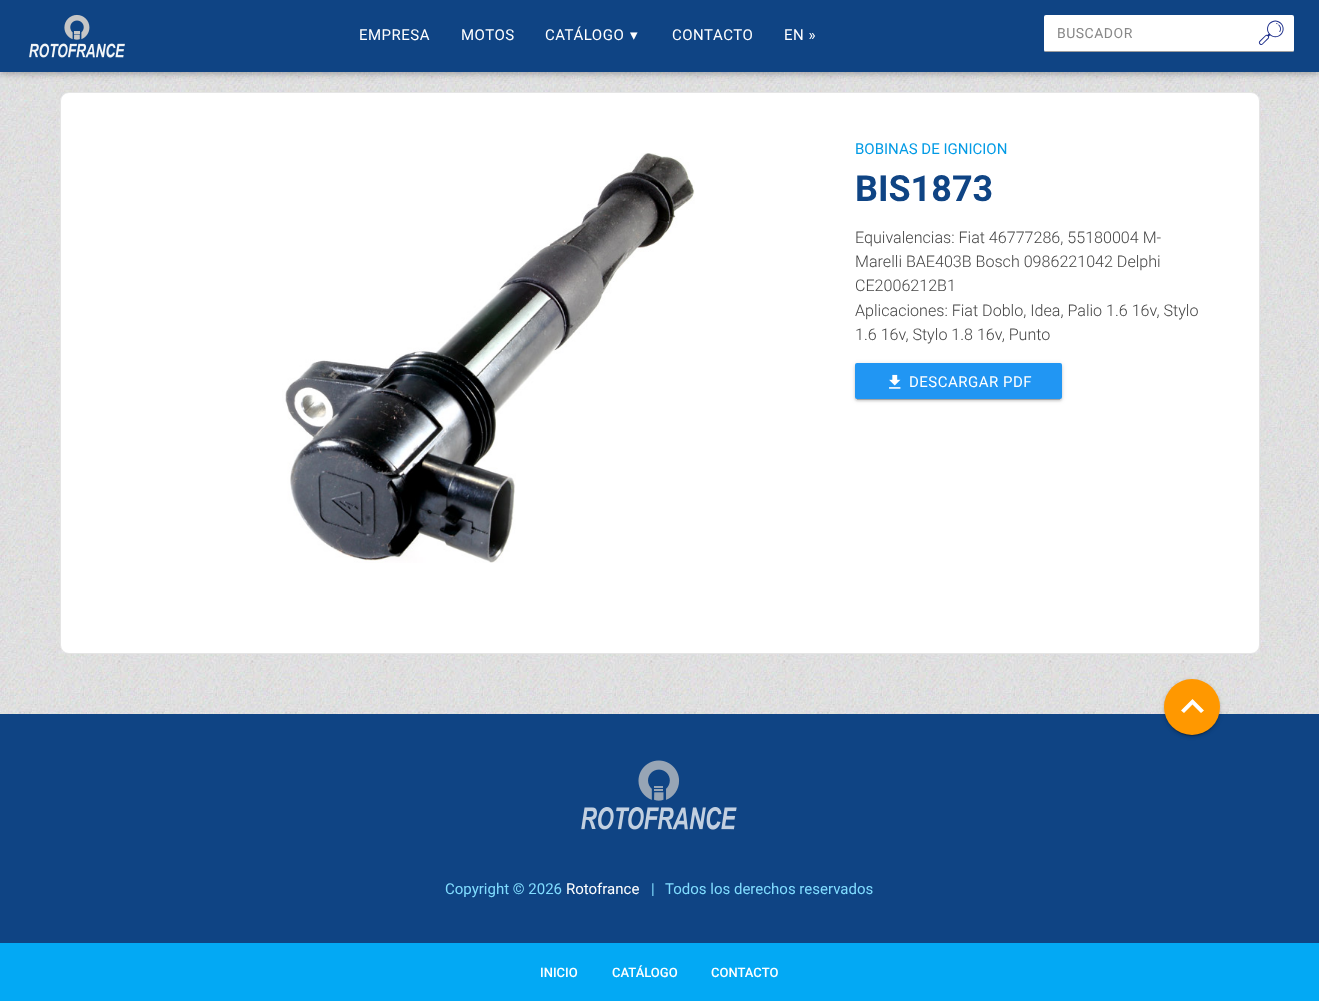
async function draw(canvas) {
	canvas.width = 1319;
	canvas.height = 1001;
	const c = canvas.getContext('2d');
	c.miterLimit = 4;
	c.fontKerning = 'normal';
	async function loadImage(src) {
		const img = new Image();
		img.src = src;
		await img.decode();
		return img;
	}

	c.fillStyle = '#fff';
	c.fillRect(0, 0, 1319, 1001);
	c.drawImage(await loadImage('img2.png'), 0, 72, 1319, 642);
	c.fillStyle = '#0000001f';
	c.filter = 'blur(5px)';
	c.beginPath();
	c.rect(0, 2, 1319, 72);
	c.fill();
	c.filter = 'none';
	c.fillStyle = '#00000029';
	c.filter = 'blur(2.5px)';
	c.beginPath();
	c.rect(0, 2, 1319, 72);
	c.fill();
	c.filter = 'none';
	c.fillStyle = '#0f4484';
	c.fillRect(0, 0, 1319, 72);
	c.drawImage(await loadImage('img1.png'), 29, 14, 96, 44);
	c.letterSpacing = '0.5px';
	c.font = '15px Roboto';
	c.fillStyle = '#fff';
	for (const [text, x, y] of [
		['EMPRESA', 359, 40],
		['MOTOS', 461, 40],
		['CATÁLOGO', 545, 40],
	]) {
		c.fillText(text, x, y);
	}
	c.font = '15px DejaVu Sans';
	c.fillText('▾', 630, 40);
	c.font = '15px Roboto';
	c.fillText('CONTACTO', 672, 40);
	c.fillText('EN »', 784, 40);
	c.beginPath();
	c.roundRect(1044, 15, 250, 37, 2);
	c.fill();
	c.fillStyle = '#9e9e9e';
	c.fillRect(1045, 51, 248, 1);
	c.font = '14px Roboto';
	c.fillStyle = '#888';
	c.fillText('BUSCADOR', 1057, 38);
	c.font = '24px Noto Emoji';
	c.fillStyle = '#1a2b89';
	c.fillText('🔎︎', 1256, 41);
	c.fillStyle = '#fff';
	c.beginPath();
	c.roundRect(60, 92, 1200, 562, 9);
	c.fill();
	c.beginPath();
	c.roundRect(60.5, 92.5, 1199, 561, 8.5);
	c.strokeStyle = '#0000001a';
	c.stroke();
	c.drawImage(await loadImage('img3.png'), 282, 153, 413, 410);
	c.letterSpacing = '0px';
	c.font = '15px Roboto';
	c.fillStyle = '#039be5';
	c.fillText('BOBINAS DE IGNICION', 855, 154);
	c.font = 'bold 36px Roboto';
	c.fillStyle = '#0f4484';
	c.fillText('BIS1873', 855, 201);
	c.font = '300 16.1px Roboto';
	c.fillStyle = '#454545';
	for (const [text, x, y] of [
		['Equivalencias: Fiat 46777286, 55180004 M-', 855, 243],
		['Marelli BAE403B Bosch 0986221042 Delphi', 855, 267],
		['CE2006212B1', 855, 291],
		['Aplicaciones: Fiat Doblo, Idea, Palio 1.6 16v, Stylo', 855, 316],
		['1.6 16v, Stylo 1.8 16v, Punto', 855, 340],
	]) {
		c.fillText(text, x, y);
	}
	c.fillStyle = '#00000033';
	c.filter = 'blur(0.5px)';
	c.beginPath();
	c.rect(857, 368, 203, 32);
	c.fill();
	c.filter = 'none';
	c.fillStyle = '#0000001f';
	c.filter = 'blur(2.5px)';
	c.beginPath();
	c.roundRect(855, 364, 207, 36, 2);
	c.fill();
	c.filter = 'none';
	c.fillStyle = '#00000024';
	c.filter = 'blur(1px)';
	c.beginPath();
	c.roundRect(855, 365, 207, 36, 2);
	c.fill();
	c.filter = 'none';
	c.fillStyle = '#2196f3';
	c.beginPath();
	c.roundRect(855, 363, 207, 36, 2);
	c.fill();
	c.drawImage(await loadImage('img4.png'), 889, 374, 12, 15);
	c.letterSpacing = '0.5px';
	c.font = '15px Roboto';
	c.fillStyle = '#fff';
	c.fillText('DESCARGAR PDF', 909, 387);
	c.fillStyle = '#0f4484';
	c.fillRect(0, 714, 1319, 229);
	c.fillStyle = '#00000033';
	c.filter = 'blur(0.5px)';
	c.beginPath();
	c.roundRect(1166, 684, 52, 52, 26);
	c.fill();
	c.filter = 'none';
	c.fillStyle = '#0000001f';
	c.filter = 'blur(2.5px)';
	c.beginPath();
	c.roundRect(1164, 680, 56, 56, 28);
	c.fill();
	c.filter = 'none';
	c.fillStyle = '#00000024';
	c.filter = 'blur(1px)';
	c.beginPath();
	c.roundRect(1164, 681, 56, 56, 28);
	c.fill();
	c.filter = 'none';
	c.fillStyle = '#ff9800';
	c.beginPath();
	c.arc(1192, 707, 28, 0, 2 * Math.PI);
	c.fill();
	c.fillStyle = '#fff';
	c.beginPath();
	c.moveTo(1184, 713);
	c.lineTo(1181, 710.5);
	c.lineTo(1192.5, 699);
	c.lineTo(1204, 710.5);
	c.lineTo(1201, 713);
	c.lineTo(1192.5, 704.5);
	c.closePath();
	c.fill();
	c.drawImage(await loadImage('img5.png'), 581, 760, 156, 70);
	c.letterSpacing = '0px';
	c.fillStyle = '#81ddff';
	c.fillText('Copyright © 2026', 445, 894);
	c.fillStyle = '#fff';
	c.fillText('Rotofrance', 566, 894);
	c.fillStyle = '#81ddff';
	c.fillText('|', 651, 894);
	c.fillText('Todos los derechos reservados', 665, 894);
	c.fillStyle = '#03a9f4';
	c.fillRect(0, 943, 1319, 58);
	c.font = '500 13px Roboto';
	c.fillStyle = '#fff';
	for (const [text, x, y] of [
		['INICIO', 540, 977],
		['CATÁLOGO', 612, 977],
		['CONTACTO', 711, 977],
	]) {
		c.fillText(text, x, y);
	}
}

draw(document.querySelector('canvas'));
